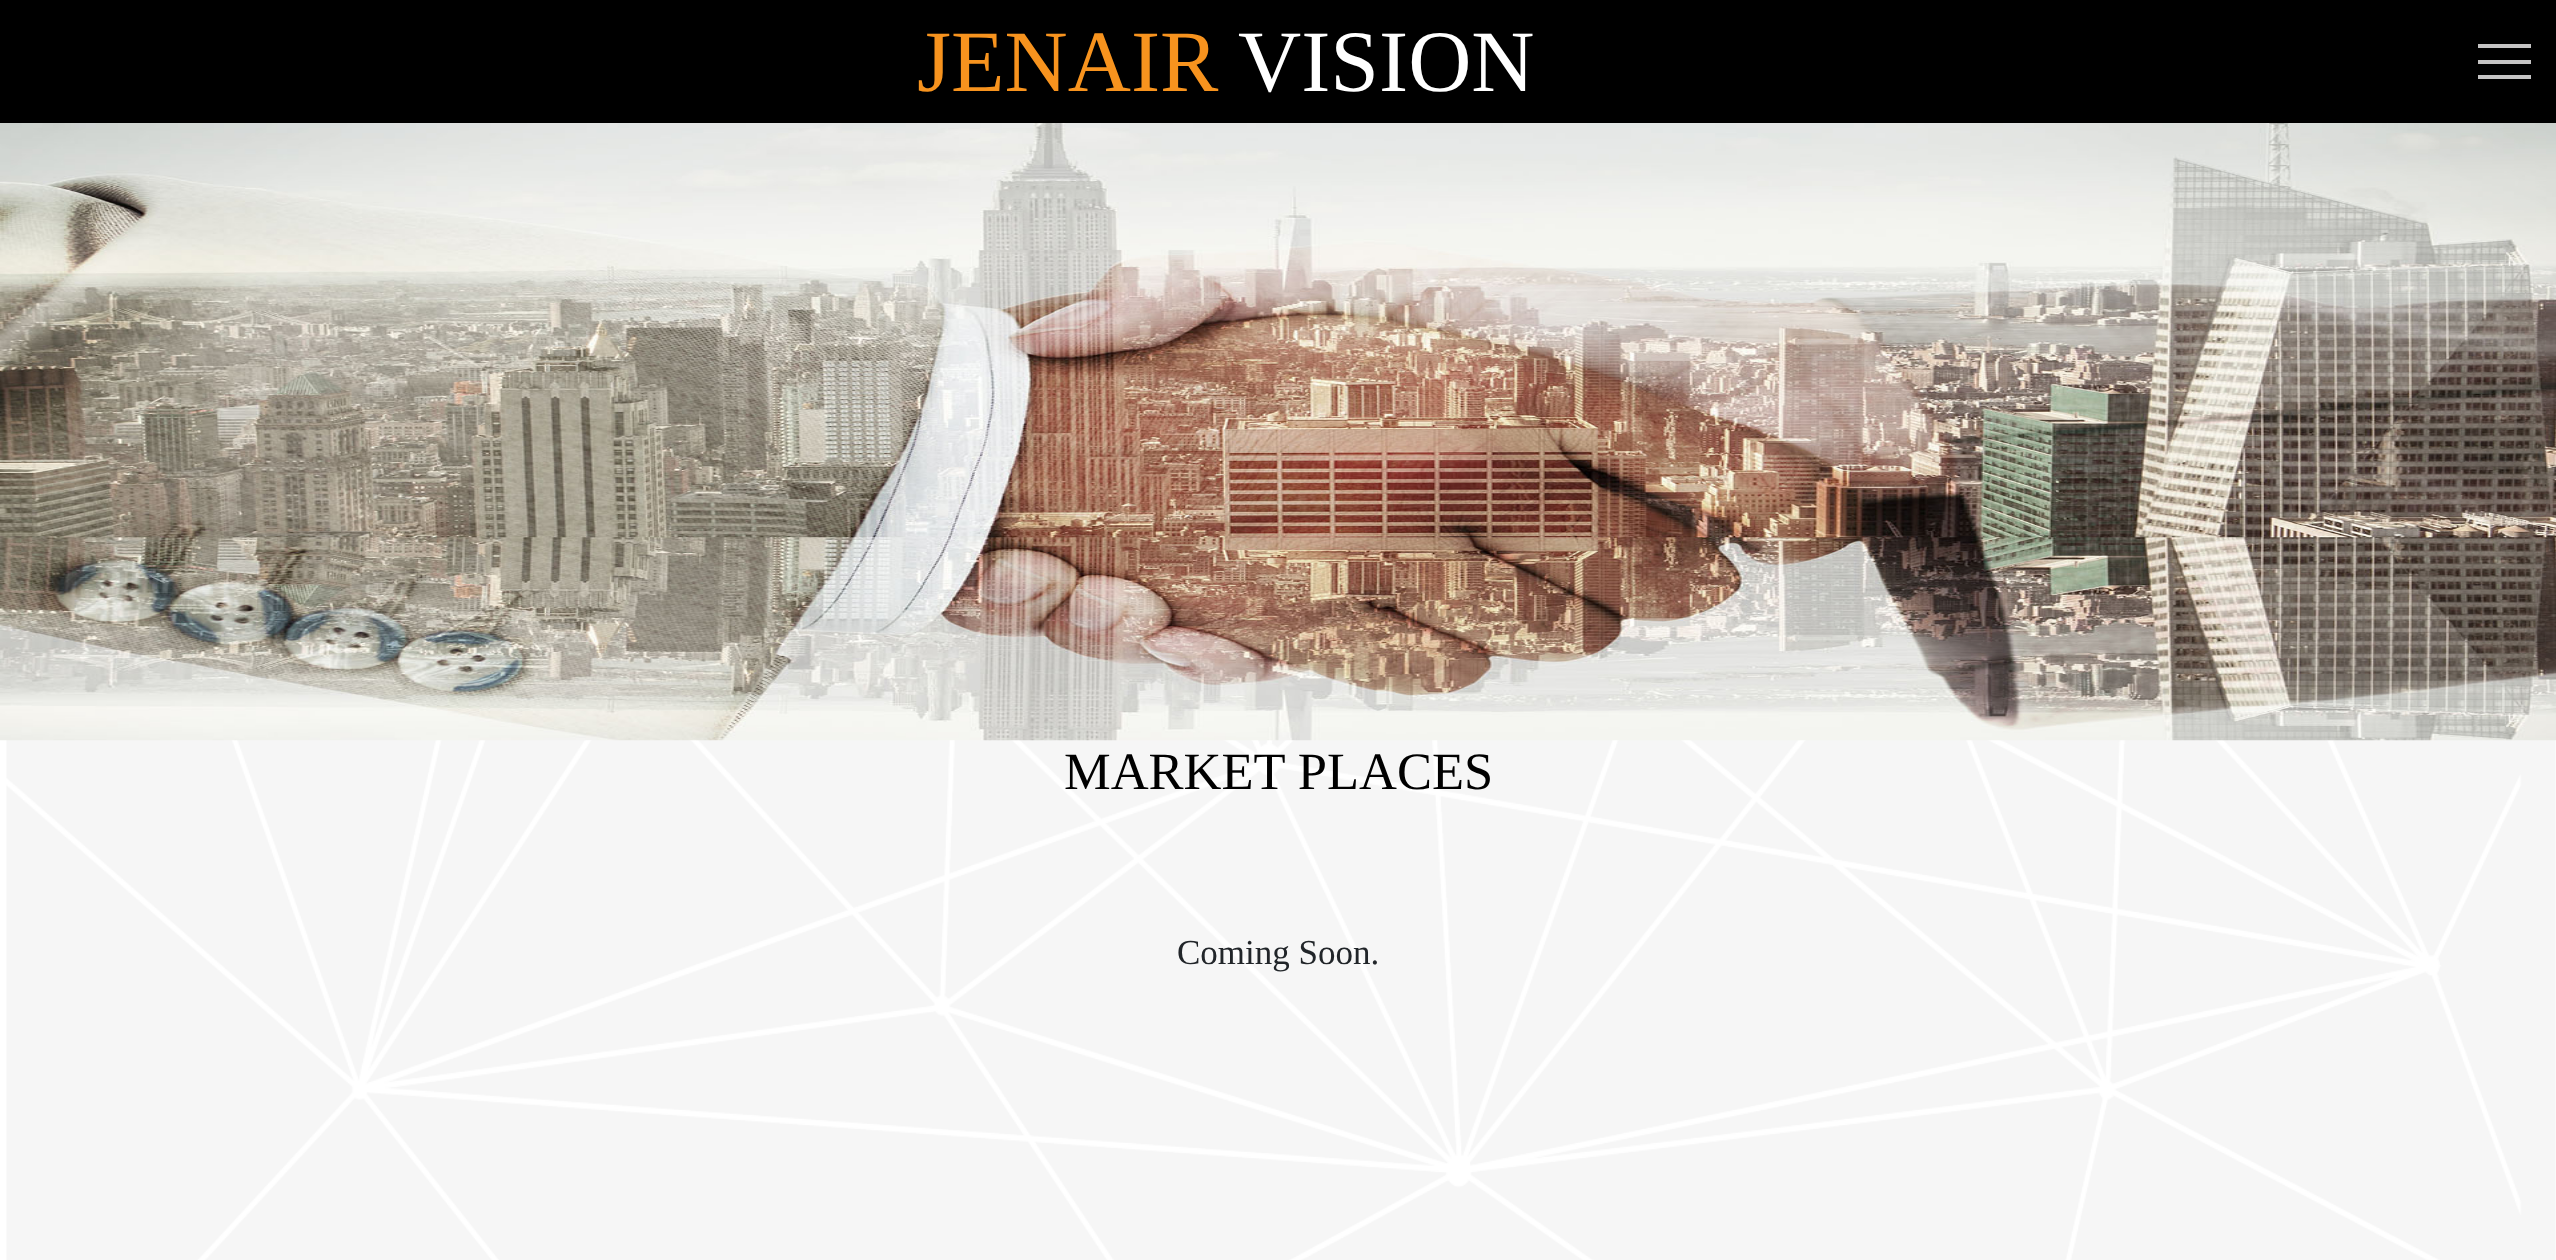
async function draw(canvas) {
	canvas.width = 2556;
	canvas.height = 1260;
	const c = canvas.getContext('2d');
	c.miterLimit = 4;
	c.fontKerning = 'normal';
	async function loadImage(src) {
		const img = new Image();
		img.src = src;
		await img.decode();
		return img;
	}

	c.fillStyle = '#fff';
	c.fillRect(0, 0, 2556, 1260);
	c.drawImage(await loadImage('img1.png'), 6, 740, 2550, 520);
	c.fillStyle = '#000';
	c.fillRect(0, 0, 2556, 123);
	c.font = '87.5px Liberation Serif';
	c.fillStyle = '#f7931e';
	c.fillText('JENAIR', 917, 91);
	c.fillStyle = '#fff';
	c.fillText('VISION', 1238, 91);
	for (const [x, y, w, h, color] of [
		[2478, 44, 53, 4, '#c5c4c4'],
		[2478, 60, 53, 4, '#c5c4c4'],
		[2478, 75, 53, 4, '#c5c4c4'],
	]) {
		c.fillStyle = color;
		c.fillRect(x, y, w, h);
	}
	c.drawImage(await loadImage('img2.png'), 0, 123, 2556, 618);
	c.font = '52.5px Liberation Serif';
	c.fillStyle = '#000';
	c.fillText('MARKET PLACES', 1064, 789);
	c.font = '35px Liberation Serif';
	c.fillStyle = '#212529';
	c.fillText('Coming Soon.', 1177, 964);
}

draw(document.querySelector('canvas'));
